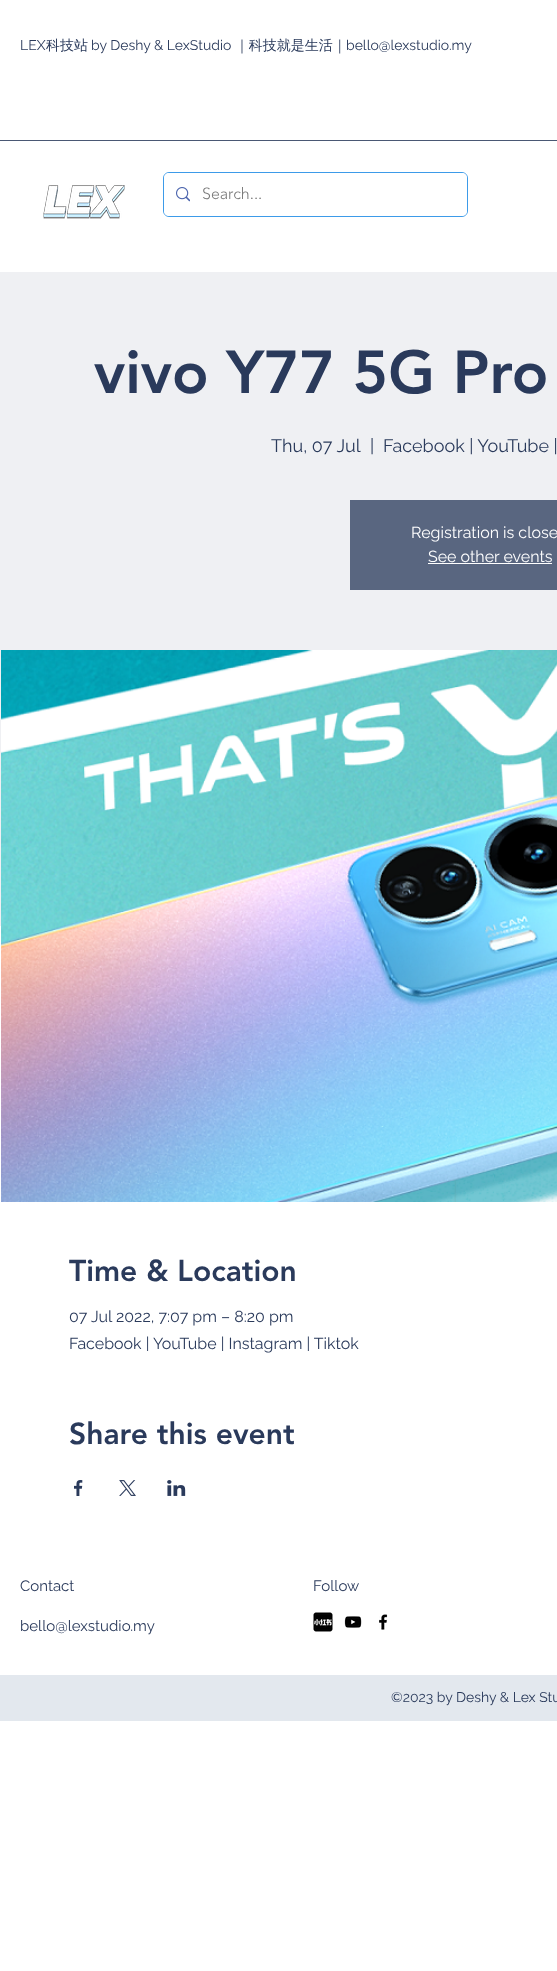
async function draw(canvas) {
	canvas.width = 557;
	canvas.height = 1971;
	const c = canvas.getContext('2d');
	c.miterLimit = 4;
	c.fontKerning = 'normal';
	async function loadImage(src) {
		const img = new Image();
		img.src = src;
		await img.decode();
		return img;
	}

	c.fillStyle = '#fff';
	c.fillRect(0, 0, 557, 1971);
	c.font = '14px Raleway';
	c.fillStyle = '#2a3a5b';
	c.fillText('LEX', 20, 50);
	c.font = '500 14px WenQuanYi Zen Hei';
	c.fillText('科技站', 46, 50);
	c.font = '14px Raleway';
	c.fillText('by Deshy & LexStudio', 91, 50);
	c.font = '500 14px WenQuanYi Zen Hei';
	c.fillText('｜科技就是生活｜', 235, 50);
	c.font = '14px Raleway';
	c.fillText('bello@lexstudio.my', 346, 50);
	c.fillStyle = '#4a5874';
	c.fillRect(0, 140, 557, 1);
	c.drawImage(await loadImage('img1.png'), 43, 185, 82, 34);
	c.beginPath();
	c.roundRect(163.5, 172.5, 304, 44, 5.5);
	c.strokeStyle = '#3d9be9';
	c.stroke();
	c.fillStyle = '#fff';
	c.beginPath();
	c.roundRect(164, 173, 303, 43, 5);
	c.fill();
	c.drawImage(await loadImage('img2.png'), 176, 187, 14, 15);
	c.font = '300 16px "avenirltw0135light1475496"';
	c.fillStyle = '#787878';
	c.fillText('Search...', 202, 199);
	c.fillStyle = '#eff0f3';
	c.fillRect(0, 272, 557, 654);
	c.font = '900 60px "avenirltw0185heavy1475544"';
	c.fillStyle = '#2a3a5b';
	c.fillText('vivo Y77 5G Pro', 94, 393);
	c.font = '18px Raleway';
	for (const [text, x, y] of [
		['Thu, 07 Jul', 271, 452],
		['|', 370, 452],
		['Facebook | YouTube |', 383, 452],
	]) {
		c.fillText(text, x, y);
	}
	c.fillStyle = '#596680';
	c.fillRect(350, 500, 207, 90);
	c.font = '16px Raleway';
	c.fillStyle = '#fff';
	c.fillText('Registration is close', 411, 538);
	c.fillText('See other events', 428, 562);
	c.fillRect(428, 563, 124, 1);
	c.drawImage(await loadImage('img3.png'), 1, 650, 556, 552);
	c.font = '900 30px "avenirltw0185heavy1475544"';
	c.fillStyle = '#2a3a5b';
	c.fillText('Time & Location', 69, 1281);
	c.font = '16px Raleway';
	c.fillText('07 Jul 2022, 7:07 pm – 8:20 pm', 69, 1322);
	c.fillText('Facebook | YouTube | Instagram | Tiktok', 69, 1349);
	c.font = '900 30px "avenirltw0185heavy1475544"';
	c.fillText('Share this event', 69, 1444);
	c.drawImage(await loadImage('img4.png'), 74, 1480, 9, 16);
	c.drawImage(await loadImage('img5.png'), 119, 1480, 17, 16);
	c.drawImage(await loadImage('img6.png'), 167, 1480, 19, 16);
	c.font = '15px Raleway';
	for (const [text, x, y] of [
		['Contact', 20, 1591],
		['Follow', 313, 1591],
		['bello@lexstudio.my', 20, 1631],
	]) {
		c.fillText(text, x, y);
	}
	c.drawImage(await loadImage('img7.png'), 313, 1612, 20, 20);
	c.drawImage(await loadImage('img8.png'), 344, 1616, 18, 12);
	c.drawImage(await loadImage('img9.png'), 379, 1614, 9, 16);
	c.fillStyle = '#e3e8ee';
	c.fillRect(0, 1675, 557, 46);
	c.font = '14px Raleway';
	c.fillStyle = '#2a3a5b';
	c.fillText('©2023 by Deshy & Lex Stu', 391, 1702);
}

draw(document.querySelector('canvas'));
